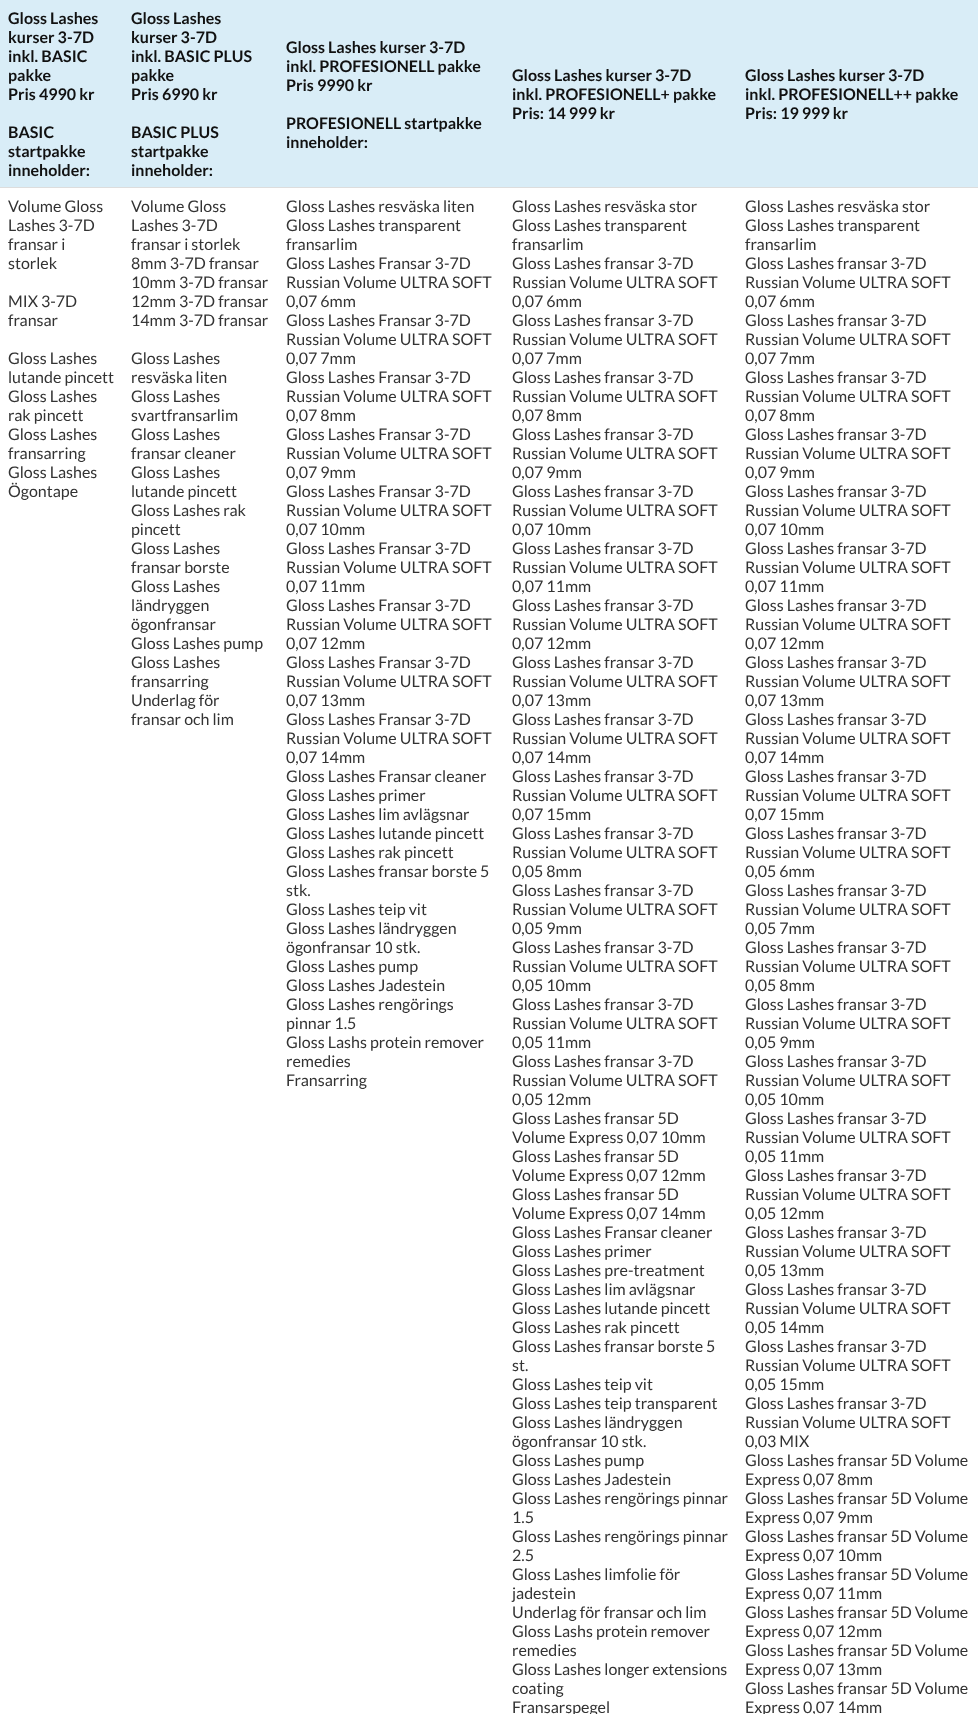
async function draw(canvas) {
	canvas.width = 978;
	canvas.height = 1714;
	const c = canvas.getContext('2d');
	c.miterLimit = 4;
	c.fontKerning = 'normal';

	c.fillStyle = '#fff';
	c.fillRect(0, 0, 978, 1714);
	c.fillStyle = '#d9edf7';
	c.fillRect(0, 0, 978, 187);
	c.font = 'bold 16px Lato';
	c.fillStyle = '#111';
	for (const [text, x, y] of [
		['Gloss Lashes', 8, 24],
		['kurser 3-7D', 8, 43],
		['inkl. BASIC', 8, 62],
		['pakke', 8, 81],
		['Pris 4990 kr', 8, 100],
		['BASIC', 8, 138],
		['startpakke', 8, 157],
		['inneholder:', 8, 176],
		['Gloss Lashes', 131, 24],
		['kurser 3-7D', 131, 43],
		['inkl. BASIC PLUS', 131, 62],
		['pakke', 131, 81],
		['Pris 6990 kr', 131, 100],
		['BASIC PLUS', 131, 138],
		['startpakke', 131, 157],
		['inneholder:', 131, 176],
		['Gloss Lashes kurser 3-7D', 286, 53],
		['inkl. PROFESIONELL pakke', 286, 72],
		['Pris 9990 kr', 286, 91],
		['PROFESIONELL startpakke', 286, 129],
		['inneholder:', 286, 148],
		['Gloss Lashes kurser 3-7D', 512, 81],
		['inkl. PROFESIONELL+ pakke', 512, 100],
		['Pris: 14 999 kr', 512, 119],
		['Gloss Lashes kurser 3-7D', 745, 81],
		['inkl. PROFESIONELL++ pakke', 745, 100],
		['Pris: 19 999 kr', 745, 119],
	]) {
		c.fillText(text, x, y);
	}
	c.font = '16px Lato';
	c.fillStyle = '#333';
	for (const [text, x, y] of [
		['Volume Gloss', 8, 212],
		['Lashes 3-7D', 8, 231],
		['fransar i', 8, 250],
		['storlek', 8, 269],
		['MIX 3-7D', 8, 307],
		['fransar', 8, 326],
		['Gloss Lashes', 8, 364],
		['lutande pincett', 8, 383],
		['Gloss Lashes', 8, 402],
		['rak pincett', 8, 421],
		['Gloss Lashes', 8, 440],
		['fransarring', 8, 459],
		['Gloss Lashes', 8, 478],
		['Ögontape', 8, 497],
		['Volume Gloss', 131, 212],
		['Lashes 3-7D', 131, 231],
		['fransar i storlek', 131, 250],
		['8mm 3-7D fransar', 131, 269],
		['10mm 3-7D fransar', 131, 288],
		['12mm 3-7D fransar', 131, 307],
		['14mm 3-7D fransar', 131, 326],
		['Gloss Lashes', 131, 364],
		['resväska liten', 131, 383],
		['Gloss Lashes', 131, 402],
		['svartfransarlim', 131, 421],
		['Gloss Lashes', 131, 440],
		['fransar cleaner', 131, 459],
		['Gloss Lashes', 131, 478],
		['lutande pincett', 131, 497],
		['Gloss Lashes rak', 131, 516],
		['pincett', 131, 535],
		['Gloss Lashes', 131, 554],
		['fransar borste', 131, 573],
		['Gloss Lashes', 131, 592],
		['ländryggen', 131, 611],
		['ögonfransar', 131, 630],
		['Gloss Lashes pump', 131, 649],
		['Gloss Lashes', 131, 668],
		['fransarring', 131, 687],
		['Underlag för', 131, 706],
		['fransar och lim', 131, 725],
		['Gloss Lashes resväska liten', 286, 212],
		['Gloss Lashes transparent', 286, 231],
		['fransarlim', 286, 250],
		['Gloss Lashes Fransar 3-7D', 286, 269],
		['Russian Volume ULTRA SOFT', 286, 288],
		['0,07 6mm', 286, 307],
		['Gloss Lashes Fransar 3-7D', 286, 326],
		['Russian Volume ULTRA SOFT', 286, 345],
		['0,07 7mm', 286, 364],
		['Gloss Lashes Fransar 3-7D', 286, 383],
		['Russian Volume ULTRA SOFT', 286, 402],
		['0,07 8mm', 286, 421],
		['Gloss Lashes Fransar 3-7D', 286, 440],
		['Russian Volume ULTRA SOFT', 286, 459],
		['0,07 9mm', 286, 478],
		['Gloss Lashes Fransar 3-7D', 286, 497],
		['Russian Volume ULTRA SOFT', 286, 516],
		['0,07 10mm', 286, 535],
		['Gloss Lashes Fransar 3-7D', 286, 554],
		['Russian Volume ULTRA SOFT', 286, 573],
		['0,07 11mm', 286, 592],
		['Gloss Lashes Fransar 3-7D', 286, 611],
		['Russian Volume ULTRA SOFT', 286, 630],
		['0,07 12mm', 286, 649],
		['Gloss Lashes Fransar 3-7D', 286, 668],
		['Russian Volume ULTRA SOFT', 286, 687],
		['0,07 13mm', 286, 706],
		['Gloss Lashes Fransar 3-7D', 286, 725],
		['Russian Volume ULTRA SOFT', 286, 744],
		['0,07 14mm', 286, 763],
		['Gloss Lashes Fransar cleaner', 286, 782],
		['Gloss Lashes primer', 286, 801],
		['Gloss Lashes lim avlägsnar', 286, 820],
		['Gloss Lashes lutande pincett', 286, 839],
		['Gloss Lashes rak pincett', 286, 858],
		['Gloss Lashes fransar borste 5', 286, 877],
		['stk.', 286, 896],
		['Gloss Lashes teip vit', 286, 915],
		['Gloss Lashes ländryggen', 286, 934],
		['ögonfransar 10 stk.', 286, 953],
		['Gloss Lashes pump', 286, 972],
		['Gloss Lashes Jadestein', 286, 991],
		['Gloss Lashes rengörings', 286, 1010],
		['pinnar 1.5', 286, 1029],
		['Gloss Lashs protein remover', 286, 1048],
		['remedies', 286, 1067],
		['Fransarring', 286, 1086],
		['Gloss Lashes resväska stor', 512, 212],
		['Gloss Lashes transparent', 512, 231],
		['fransarlim', 512, 250],
		['Gloss Lashes fransar 3-7D', 512, 269],
		['Russian Volume ULTRA SOFT', 512, 288],
		['0,07 6mm', 512, 307],
		['Gloss Lashes fransar 3-7D', 512, 326],
		['Russian Volume ULTRA SOFT', 512, 345],
		['0,07 7mm', 512, 364],
		['Gloss Lashes fransar 3-7D', 512, 383],
		['Russian Volume ULTRA SOFT', 512, 402],
		['0,07 8mm', 512, 421],
		['Gloss Lashes fransar 3-7D', 512, 440],
		['Russian Volume ULTRA SOFT', 512, 459],
		['0,07 9mm', 512, 478],
		['Gloss Lashes fransar 3-7D', 512, 497],
		['Russian Volume ULTRA SOFT', 512, 516],
		['0,07 10mm', 512, 535],
		['Gloss Lashes fransar 3-7D', 512, 554],
		['Russian Volume ULTRA SOFT', 512, 573],
		['0,07 11mm', 512, 592],
		['Gloss Lashes fransar 3-7D', 512, 611],
		['Russian Volume ULTRA SOFT', 512, 630],
		['0,07 12mm', 512, 649],
		['Gloss Lashes fransar 3-7D', 512, 668],
		['Russian Volume ULTRA SOFT', 512, 687],
		['0,07 13mm', 512, 706],
		['Gloss Lashes fransar 3-7D', 512, 725],
		['Russian Volume ULTRA SOFT', 512, 744],
		['0,07 14mm', 512, 763],
		['Gloss Lashes fransar 3-7D', 512, 782],
		['Russian Volume ULTRA SOFT', 512, 801],
		['0,07 15mm', 512, 820],
		['Gloss Lashes fransar 3-7D', 512, 839],
		['Russian Volume ULTRA SOFT', 512, 858],
		['0,05 8mm', 512, 877],
		['Gloss Lashes fransar 3-7D', 512, 896],
		['Russian Volume ULTRA SOFT', 512, 915],
		['0,05 9mm', 512, 934],
		['Gloss Lashes fransar 3-7D', 512, 953],
		['Russian Volume ULTRA SOFT', 512, 972],
		['0,05 10mm', 512, 991],
		['Gloss Lashes fransar 3-7D', 512, 1010],
		['Russian Volume ULTRA SOFT', 512, 1029],
		['0,05 11mm', 512, 1048],
		['Gloss Lashes fransar 3-7D', 512, 1067],
		['Russian Volume ULTRA SOFT', 512, 1086],
		['0,05 12mm', 512, 1105],
		['Gloss Lashes fransar 5D', 512, 1124],
		['Volume Express 0,07 10mm', 512, 1143],
		['Gloss Lashes fransar 5D', 512, 1162],
		['Volume Express 0,07 12mm', 512, 1181],
		['Gloss Lashes fransar 5D', 512, 1200],
		['Volume Express 0,07 14mm', 512, 1219],
		['Gloss Lashes Fransar cleaner', 512, 1238],
		['Gloss Lashes primer', 512, 1257],
		['Gloss Lashes pre-treatment', 512, 1276],
		['Gloss Lashes lim avlägsnar', 512, 1295],
		['Gloss Lashes lutande pincett', 512, 1314],
		['Gloss Lashes rak pincett', 512, 1333],
		['Gloss Lashes fransar borste 5', 512, 1352],
		['st.', 512, 1371],
		['Gloss Lashes teip vit', 512, 1390],
		['Gloss Lashes teip transparent', 512, 1409],
		['Gloss Lashes ländryggen', 512, 1428],
		['ögonfransar 10 stk.', 512, 1447],
		['Gloss Lashes pump', 512, 1466],
		['Gloss Lashes Jadestein', 512, 1485],
		['Gloss Lashes rengörings pinnar', 512, 1504],
		['1.5', 512, 1523],
		['Gloss Lashes rengörings pinnar', 512, 1542],
		['2.5', 512, 1561],
		['Gloss Lashes limfolie för', 512, 1580],
		['jadestein', 512, 1599],
		['Underlag för fransar och lim', 512, 1618],
		['Gloss Lashs protein remover', 512, 1637],
		['remedies', 512, 1656],
		['Gloss Lashes longer extensions', 512, 1675],
		['coating', 512, 1694],
		['Fransarspegel', 512, 1713],
	]) {
		c.fillText(text, x, y);
	}
	c.fillStyle = '#ddd';
	c.fillRect(0, 187, 978, 1);
	c.fillStyle = '#333';
	for (const [text, x, y] of [
		['Gloss Lashes resväska stor', 745, 212],
		['Gloss Lashes transparent', 745, 231],
		['fransarlim', 745, 250],
		['Gloss Lashes fransar 3-7D', 745, 269],
		['Russian Volume ULTRA SOFT', 745, 288],
		['0,07 6mm', 745, 307],
		['Gloss Lashes fransar 3-7D', 745, 326],
		['Russian Volume ULTRA SOFT', 745, 345],
		['0,07 7mm', 745, 364],
		['Gloss Lashes fransar 3-7D', 745, 383],
		['Russian Volume ULTRA SOFT', 745, 402],
		['0,07 8mm', 745, 421],
		['Gloss Lashes fransar 3-7D', 745, 440],
		['Russian Volume ULTRA SOFT', 745, 459],
		['0,07 9mm', 745, 478],
		['Gloss Lashes fransar 3-7D', 745, 497],
		['Russian Volume ULTRA SOFT', 745, 516],
		['0,07 10mm', 745, 535],
		['Gloss Lashes fransar 3-7D', 745, 554],
		['Russian Volume ULTRA SOFT', 745, 573],
		['0,07 11mm', 745, 592],
		['Gloss Lashes fransar 3-7D', 745, 611],
		['Russian Volume ULTRA SOFT', 745, 630],
		['0,07 12mm', 745, 649],
		['Gloss Lashes fransar 3-7D', 745, 668],
		['Russian Volume ULTRA SOFT', 745, 687],
		['0,07 13mm', 745, 706],
		['Gloss Lashes fransar 3-7D', 745, 725],
		['Russian Volume ULTRA SOFT', 745, 744],
		['0,07 14mm', 745, 763],
		['Gloss Lashes fransar 3-7D', 745, 782],
		['Russian Volume ULTRA SOFT', 745, 801],
		['0,07 15mm', 745, 820],
		['Gloss Lashes fransar 3-7D', 745, 839],
		['Russian Volume ULTRA SOFT', 745, 858],
		['0,05 6mm', 745, 877],
		['Gloss Lashes fransar 3-7D', 745, 896],
		['Russian Volume ULTRA SOFT', 745, 915],
		['0,05 7mm', 745, 934],
		['Gloss Lashes fransar 3-7D', 745, 953],
		['Russian Volume ULTRA SOFT', 745, 972],
		['0,05 8mm', 745, 991],
		['Gloss Lashes fransar 3-7D', 745, 1010],
		['Russian Volume ULTRA SOFT', 745, 1029],
		['0,05 9mm', 745, 1048],
		['Gloss Lashes fransar 3-7D', 745, 1067],
		['Russian Volume ULTRA SOFT', 745, 1086],
		['0,05 10mm', 745, 1105],
		['Gloss Lashes fransar 3-7D', 745, 1124],
		['Russian Volume ULTRA SOFT', 745, 1143],
		['0,05 11mm', 745, 1162],
		['Gloss Lashes fransar 3-7D', 745, 1181],
		['Russian Volume ULTRA SOFT', 745, 1200],
		['0,05 12mm', 745, 1219],
		['Gloss Lashes fransar 3-7D', 745, 1238],
		['Russian Volume ULTRA SOFT', 745, 1257],
		['0,05 13mm', 745, 1276],
		['Gloss Lashes fransar 3-7D', 745, 1295],
		['Russian Volume ULTRA SOFT', 745, 1314],
		['0,05 14mm', 745, 1333],
		['Gloss Lashes fransar 3-7D', 745, 1352],
		['Russian Volume ULTRA SOFT', 745, 1371],
		['0,05 15mm', 745, 1390],
		['Gloss Lashes fransar 3-7D', 745, 1409],
		['Russian Volume ULTRA SOFT', 745, 1428],
		['0,03 MIX', 745, 1447],
		['Gloss Lashes fransar 5D Volume', 745, 1466],
		['Express 0,07 8mm', 745, 1485],
		['Gloss Lashes fransar 5D Volume', 745, 1504],
		['Express 0,07 9mm', 745, 1523],
		['Gloss Lashes fransar 5D Volume', 745, 1542],
		['Express 0,07 10mm', 745, 1561],
		['Gloss Lashes fransar 5D Volume', 745, 1580],
		['Express 0,07 11mm', 745, 1599],
		['Gloss Lashes fransar 5D Volume', 745, 1618],
		['Express 0,07 12mm', 745, 1637],
		['Gloss Lashes fransar 5D Volume', 745, 1656],
		['Express 0,07 13mm', 745, 1675],
		['Gloss Lashes fransar 5D Volume', 745, 1694],
		['Express 0,07 14mm', 745, 1713],
	]) {
		c.fillText(text, x, y);
	}
}

draw(document.querySelector('canvas'));
